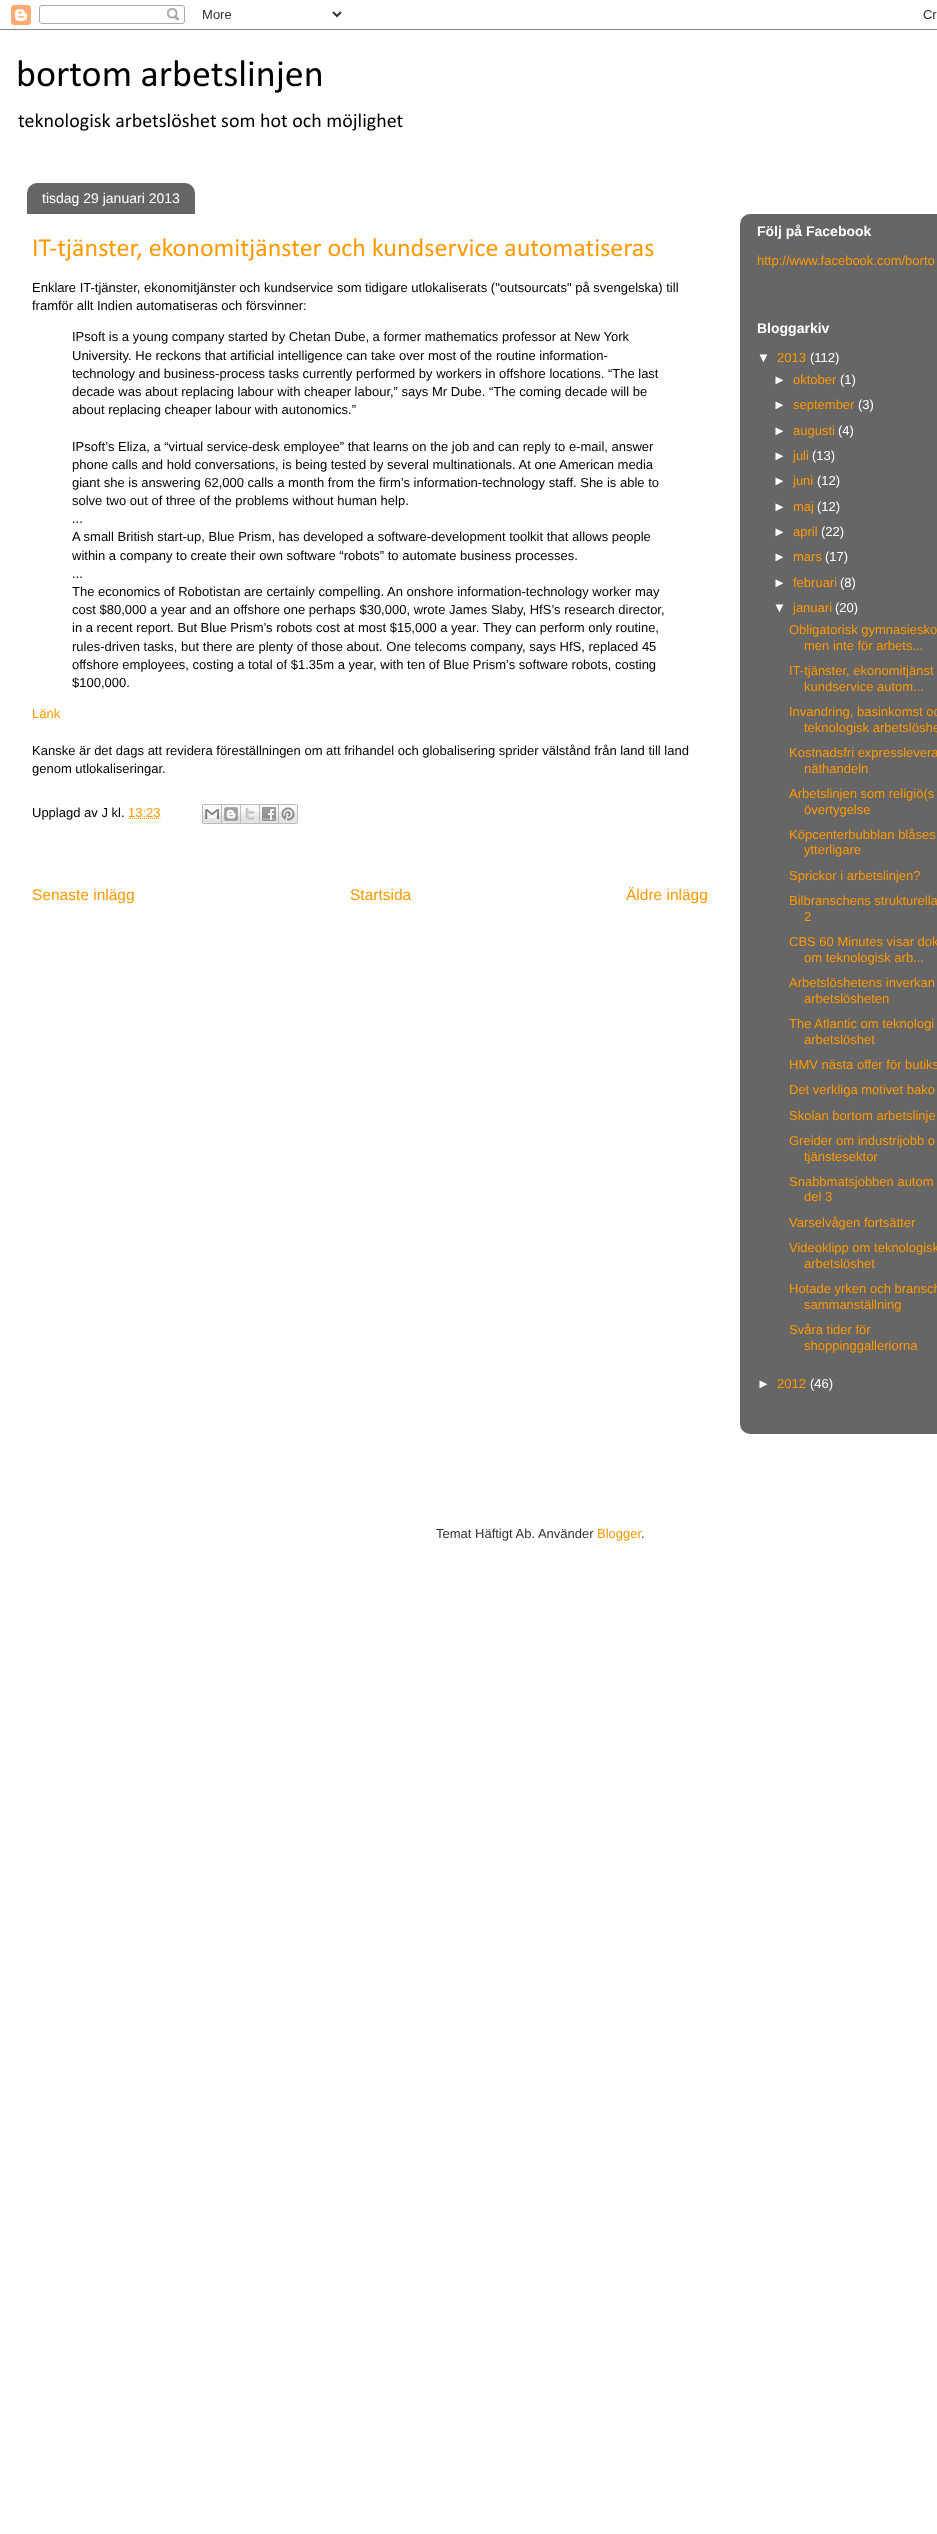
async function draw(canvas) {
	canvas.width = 937;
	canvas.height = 2534;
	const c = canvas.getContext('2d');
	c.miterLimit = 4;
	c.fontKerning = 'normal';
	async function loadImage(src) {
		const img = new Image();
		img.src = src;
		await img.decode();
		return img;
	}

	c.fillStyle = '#fff';
	c.fillRect(0, 0, 937, 2534);
	c.drawImage(await loadImage('img1.png'), 0, 5, 937, 25);
	c.font = '38px Calibri';
	c.fillStyle = '#000';
	c.fillText('bortom arbetslinjen', 16, 86);
	c.font = '20px Calibri';
	c.fillText('teknologisk arbetslöshet som hot och möjlighet', 18, 127);
	c.drawImage(await loadImage('img2.png'), 27, 183, 168, 31);
	c.font = '14px Liberation Sans';
	c.fillStyle = '#fff';
	c.fillText('tisdag 29 januari 2013', 42, 203);
	c.font = '26px Calibri';
	c.fillStyle = '#f90';
	c.fillText('IT-tjänster, ekonomitjänster och kundservice automatiseras', 32, 256);
	c.font = '13px Liberation Sans';
	c.fillStyle = '#000';
	for (const [text, x, y] of [
		['Enklare IT-tjänster, ekonomitjänster och kundservice som tidigare utlokaliserats ("outsourcats" på svengelska) till', 32, 292],
		['framför allt Indien automatiseras och försvinner:', 32, 310],
		['IPsoft is a young company started by Chetan Dube, a former mathematics professor at New York', 72, 341],
		['University. He reckons that artificial intelligence can take over most of the routine information-', 72, 360],
		['technology and business-process tasks currently performed by workers in offshore locations. “The last', 72, 378],
		['decade was about replacing labour with cheaper labour,” says Mr Dube. “The coming decade will be', 72, 396],
		['about replacing cheaper labour with autonomics.”', 72, 414],
		['IPsoft’s Eliza, a “virtual service-desk employee” that learns on the job and can reply to e-mail, answer', 72, 451],
		['phone calls and hold conversations, is being tested by several multinationals. At one American media', 72, 469],
		['giant she is answering 62,000 calls a month from the firm’s information-technology staff. She is able to', 72, 487],
		['solve two out of three of the problems without human help.', 72, 505],
		['...', 72, 523],
		['A small British start-up, Blue Prism, has developed a software-development toolkit that allows people', 72, 541],
		['within a company to create their own software “robots” to automate business processes.', 72, 560],
		['...', 72, 578],
		['The economics of Robotistan are certainly compelling. An onshore information-technology worker may', 72, 596],
		['cost $80,000 a year and an offshore one perhaps $30,000, wrote James Slaby, HfS’s research director,', 72, 614],
		['in a recent report. But Blue Prism’s robots cost at most $15,000 a year. They can perform only routine,', 72, 632],
		['rules-driven tasks, but there are plenty of those about. One telecoms company, says HfS, replaced 45', 72, 651],
		['offshore employees, costing a total of $1.35m a year, with ten of Blue Prism’s software robots, costing', 72, 669],
		['$100,000.', 72, 687],
	]) {
		c.fillText(text, x, y);
	}
	c.fillStyle = '#f90';
	c.fillText('Länk', 32, 718);
	c.fillStyle = '#000';
	for (const [text, x, y] of [
		['Kanske är det dags att revidera föreställningen om att frihandel och globalisering sprider välstånd från land till land', 32, 755],
		['genom utlokaliseringar.', 32, 773],
		['Upplagd av J kl.', 32, 817],
	]) {
		c.fillText(text, x, y);
	}
	c.fillStyle = '#f90';
	c.fillText('13:23', 128, 817);
	c.beginPath();
	c.moveTo(128, 818.5);
	c.lineTo(160.5, 818.5);
	c.strokeStyle = '#f90';
	c.setLineDash([1, 1]);
	c.stroke();
	c.drawImage(await loadImage('img3.png'), 202, 804, 20, 20);
	c.drawImage(await loadImage('img4.png'), 222, 804, 19, 20);
	c.drawImage(await loadImage('img5.png'), 241, 804, 19, 20);
	c.drawImage(await loadImage('img6.png'), 260, 804, 19, 20);
	c.drawImage(await loadImage('img7.png'), 279, 804, 19, 20);
	c.font = '15.5px Liberation Sans';
	for (const [text, x, y] of [
		['Senaste inlägg', 32, 900],
		['Startsida', 350, 900],
		['Äldre inlägg', 626, 900],
	]) {
		c.fillText(text, x, y);
	}
	c.drawImage(await loadImage('img8.png'), 740, 214, 197, 1220);
	c.font = 'bold 14px Liberation Sans';
	c.fillStyle = '#fff';
	c.fillText('Följ på Facebook', 757, 236);
	c.font = '13px Liberation Sans';
	c.fillStyle = '#f90';
	c.fillText('http://www.facebook.com/borto', 757, 265);
	c.font = 'bold 14px Liberation Sans';
	c.fillStyle = '#fff';
	c.fillText('Bloggarkiv', 757, 333);
	c.font = '13px Liberation Sans';
	c.fillText('▼', 757, 362);
	c.fillStyle = '#f90';
	c.fillText('2013', 777, 362);
	c.fillStyle = '#fff';
	c.fillText('(112)', 810, 362);
	c.fillText('►', 773, 384);
	c.fillStyle = '#f90';
	c.fillText('oktober', 793, 384);
	c.fillStyle = '#fff';
	c.fillText('(1)', 840, 384);
	c.fillText('►', 773, 409);
	c.fillStyle = '#f90';
	c.fillText('september', 793, 409);
	c.fillStyle = '#fff';
	c.fillText('(3)', 858, 409);
	c.fillText('►', 773, 435);
	c.fillStyle = '#f90';
	c.fillText('augusti', 793, 435);
	c.fillStyle = '#fff';
	c.fillText('(4)', 838, 435);
	c.fillText('►', 773, 460);
	c.fillStyle = '#f90';
	c.fillText('juli', 793, 460);
	c.fillStyle = '#fff';
	c.fillText('(13)', 812, 460);
	c.fillText('►', 773, 485);
	c.fillStyle = '#f90';
	c.fillText('juni', 793, 485);
	c.fillStyle = '#fff';
	c.fillText('(12)', 817, 485);
	c.fillText('►', 773, 511);
	c.fillStyle = '#f90';
	c.fillText('maj', 793, 511);
	c.fillStyle = '#fff';
	c.fillText('(12)', 817, 511);
	c.fillText('►', 773, 536);
	c.fillStyle = '#f90';
	c.fillText('april', 793, 536);
	c.fillStyle = '#fff';
	c.fillText('(22)', 821, 536);
	c.fillText('►', 773, 561);
	c.fillStyle = '#f90';
	c.fillText('mars', 793, 561);
	c.fillStyle = '#fff';
	c.fillText('(17)', 825, 561);
	c.fillText('►', 773, 587);
	c.fillStyle = '#f90';
	c.fillText('februari', 793, 587);
	c.fillStyle = '#fff';
	c.fillText('(8)', 840, 587);
	c.fillText('▼', 773, 612);
	c.fillStyle = '#f90';
	c.fillText('januari', 793, 612);
	c.fillStyle = '#fff';
	c.fillText('(20)', 835, 612);
	c.fillStyle = '#f90';
	for (const [text, x, y] of [
		['Obligatorisk gymnasiesko', 789, 634],
		['men inte för arbets...', 804, 650],
		['IT-tjänster, ekonomitjänst', 789, 675],
		['kundservice autom...', 804, 691],
		['Invandring, basinkomst oc', 789, 716],
		['teknologisk arbetslöshe', 804, 732],
		['Kostnadsfri expresslevera', 789, 757],
		['näthandeln', 804, 773],
		['Arbetslinjen som religiö(s', 789, 798],
		['övertygelse', 804, 814],
		['Köpcenterbubblan blåses', 789, 839],
		['ytterligare', 804, 854],
		['Sprickor i arbetslinjen?', 789, 880],
		['Bilbranschens strukturella', 789, 905],
		['2', 804, 921],
		['CBS 60 Minutes visar dok', 789, 946],
		['om teknologisk arb...', 804, 962],
		['Arbetslöshetens inverkan', 789, 987],
		['arbetslösheten', 804, 1003],
		['The Atlantic om teknologi', 789, 1028],
		['arbetslöshet', 804, 1044],
		['HMV nästa offer för butiks', 789, 1069],
		['Det verkliga motivet bako', 789, 1094],
		['Skolan bortom arbetslinje', 789, 1120],
		['Greider om industrijobb o', 789, 1145],
		['tjänstesektor', 804, 1161],
		['Snabbmatsjobben autom', 789, 1186],
		['del 3', 804, 1201],
		['Varselvågen fortsätter', 789, 1227],
		['Videoklipp om teknologisk', 789, 1252],
		['arbetslöshet', 804, 1268],
		['Hotade yrken och bransch', 789, 1293],
		['sammanställning', 804, 1309],
		['Svåra tider för', 789, 1334],
		['shoppinggalleriorna', 804, 1350],
	]) {
		c.fillText(text, x, y);
	}
	c.fillStyle = '#fff';
	c.fillText('►', 757, 1388);
	c.fillStyle = '#f90';
	c.fillText('2012', 777, 1388);
	c.fillStyle = '#fff';
	c.fillText('(46)', 810, 1388);
	c.fillStyle = '#333';
	c.fillText('Temat Häftigt Ab. Använder', 436, 1538);
	c.fillStyle = '#f90';
	c.fillText('Blogger', 597, 1538);
	c.fillStyle = '#333';
	c.fillText('.', 641, 1538);
}

draw(document.querySelector('canvas'));
